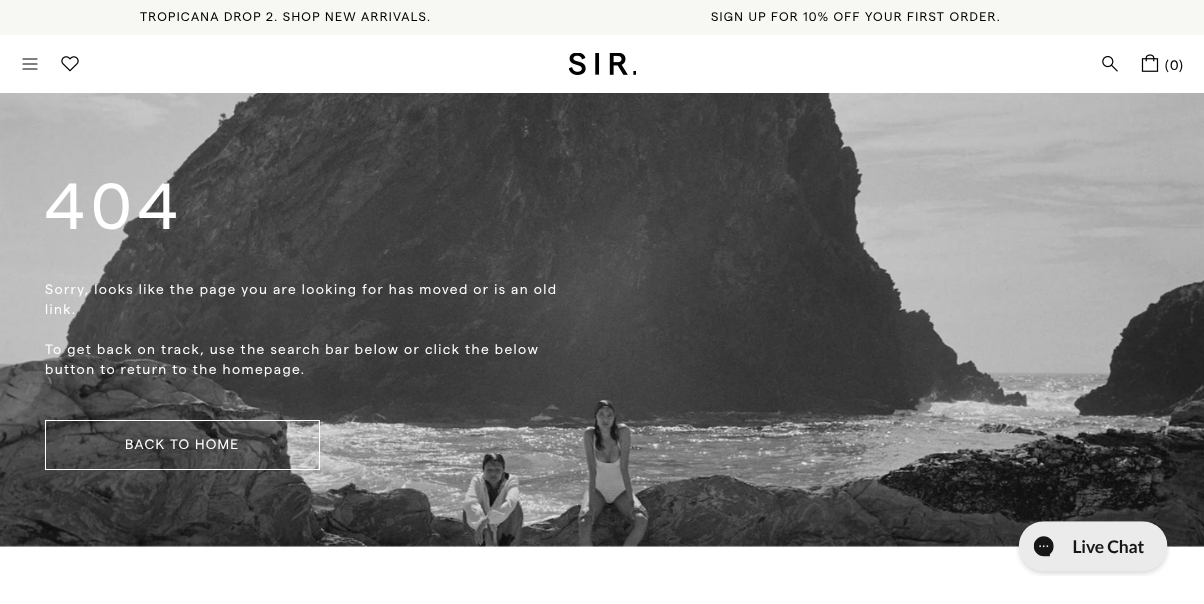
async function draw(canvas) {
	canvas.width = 1204;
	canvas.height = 604;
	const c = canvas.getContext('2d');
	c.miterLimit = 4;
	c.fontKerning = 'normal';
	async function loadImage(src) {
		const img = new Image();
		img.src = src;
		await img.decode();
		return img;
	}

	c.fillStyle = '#fff';
	c.fillRect(0, 0, 1204, 604);
	c.fillStyle = '#f7f7f3';
	c.fillRect(0, 0, 1204, 35);
	c.letterSpacing = '1.25px';
	c.font = '12.5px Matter';
	c.fillStyle = '#000';
	c.fillText('TROPICANA DROP 2. SHOP NEW ARRIVALS.', 140, 21);
	c.fillText('SIGN UP FOR 10% OFF YOUR FIRST ORDER.', 711, 21);
	c.beginPath();
	c.moveTo(23, 64);
	c.lineTo(37, 64);
	c.moveTo(23, 59);
	c.lineTo(37, 59);
	c.moveTo(23, 69);
	c.lineTo(37, 69);
	c.strokeStyle = '#000';
	c.lineWidth = 1.2;
	c.lineCap = 'round';
	c.lineJoin = 'round';
	c.stroke();
	c.drawImage(await loadImage('img1.png'), 61, 56, 18, 16);
	c.drawImage(await loadImage('img2.png'), 569, 53, 67, 22);
	c.drawImage(await loadImage('img3.png'), 1102, 56, 16, 16);
	c.drawImage(await loadImage('img4.png'), 1141, 54, 18, 18);
	c.letterSpacing = '2px';
	c.font = '13.75px Matter';
	for (const [text, x, y] of [
		['(', 1165, 70],
		['0', 1170, 70],
		[')', 1179, 70],
	]) {
		c.fillText(text, x, y);
	}
	c.drawImage(await loadImage('img5.png'), 0, 93, 1204, 454);
	c.letterSpacing = '6.5px';
	c.font = '65px Matter';
	c.fillStyle = '#fff';
	c.fillText('404', 45, 229);
	c.letterSpacing = '1.38px';
	c.font = '13.75px Matter';
	for (const [text, x, y] of [
		['Sorry, looks like the page you are looking for has moved or is an old', 45, 294],
		['link.', 45, 314],
		['To get back on track, use the search bar below or click the below', 45, 354],
		['button to return to the homepage.', 45, 374],
	]) {
		c.fillText(text, x, y);
	}
	c.strokeStyle = '#fff';
	c.lineWidth = 1;
	c.lineJoin = 'miter';
	c.strokeRect(45.5, 420.5, 274, 49);
	c.letterSpacing = '1.25px';
	c.fillText('BACK TO HOME', 125, 449);
	c.drawImage(await loadImage('img6.png'), 1016, 521, 154, 55);
}

draw(document.querySelector('canvas'));
